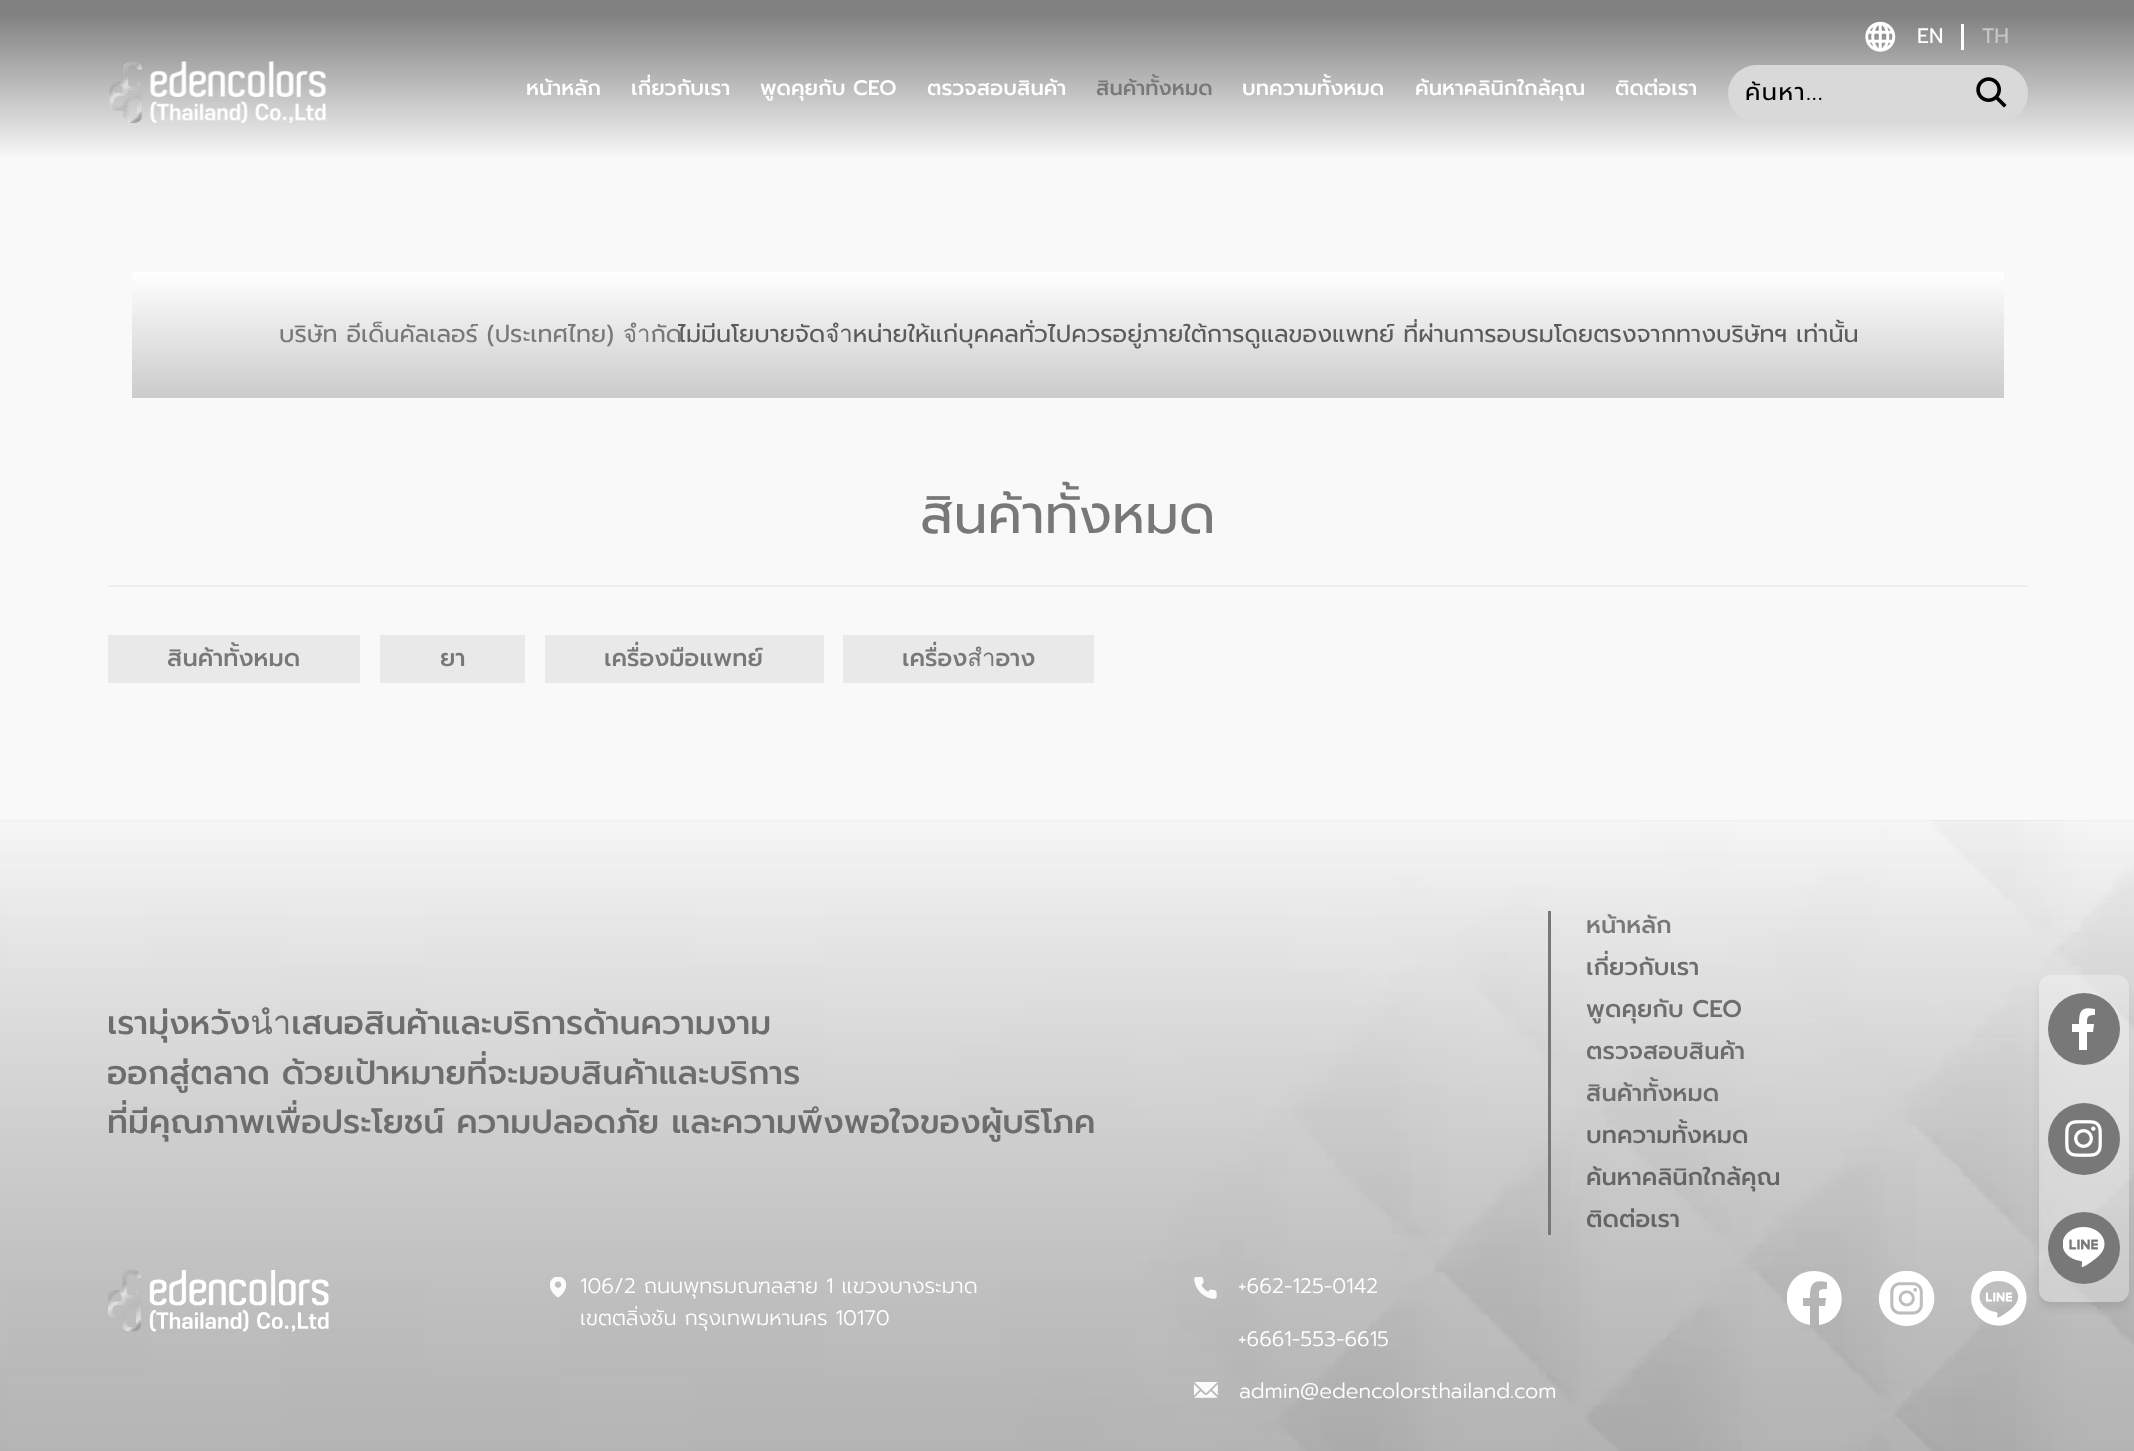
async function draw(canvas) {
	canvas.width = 2134;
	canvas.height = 1451;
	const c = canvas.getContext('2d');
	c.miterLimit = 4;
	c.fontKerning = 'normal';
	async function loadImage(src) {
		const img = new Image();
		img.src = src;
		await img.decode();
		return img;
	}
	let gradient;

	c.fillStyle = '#f9f9f9';
	c.fillRect(0, 0, 2134, 1451);
	gradient = c.createLinearGradient(1067, 0, 1067, 159);
	gradient.addColorStop(0.1, '#828282');
	gradient.addColorStop(1, '#f8f8f8');
	c.fillStyle = gradient;
	c.fillRect(0, 0, 2134, 157);
	c.drawImage(await loadImage('img1.png'), 1865, 21, 31, 31);
	c.fillStyle = '#fff';
	c.fillRect(1961, 24, 3, 26);
	c.font = '21px Prompt';
	c.fillText('EN', 1917, 43);
	c.fillStyle = '#c7c7c7';
	c.fillText('TH', 1982, 43);
	c.drawImage(await loadImage('img2.png'), 109, 61, 217, 62);
	c.font = '500 21px Prompt';
	c.fillStyle = '#fff';
	for (const [text, x, y] of [
		['หน้าหลัก', 526, 95],
		['เกี่ยวกับเรา', 631, 95],
		['พูดคุยกับ CEO', 760, 95],
		['ตรวจสอบสินค้า', 927, 95],
	]) {
		c.fillText(text, x, y);
	}
	c.fillStyle = '#787878';
	c.fillText('สินค้าทั้งหมด', 1096, 95);
	c.fillStyle = '#fff';
	for (const [text, x, y] of [
		['บทความทั้งหมด', 1242, 95],
		['ค้นหาคลินิกใกล้คุณ', 1415, 95],
		['ติดต่อเรา', 1615, 95],
	]) {
		c.fillText(text, x, y);
	}
	c.fillStyle = '#d9d9d9';
	c.beginPath();
	c.roundRect(1728, 65, 227, 57, [28.5, 0, 0, 28.5]);
	c.fill();
	c.save();
	c.beginPath();
	c.rect(1746, 75, 191, 36);
	c.clip();
	c.letterSpacing = '1.5px';
	c.font = '24px Prompt';
	c.fillStyle = '#000';
	c.fillText('ค้นหา...', 1745, 100);
	c.restore();
	c.beginPath();
	c.roundRect(1955, 65, 73, 57, [0, 28.5, 28.5, 0]);
	c.fill();
	c.drawImage(await loadImage('img3.png'), 1976, 77, 31, 31);
	gradient = c.createLinearGradient(1068, 398, 1068, 272);
	gradient.addColorStop(0, '#cbcbcb');
	gradient.addColorStop(1, '#fff');
	c.fillStyle = gradient;
	c.fillRect(132, 272, 1872, 126);
	c.font = '24px Prompt';
	c.fillStyle = '#787878';
	c.fillText('บริษัท อีเด็นคัลเลอร์ (ประเทศไทย) จำกัด', 279, 342);
	c.fillStyle = '#5b5b5b';
	c.fillText('ไม่มีนโยบายจัดจำหน่ายให้แก่บุคคลทั่วไปควรอยู่ภายใต้การดูแลของแพทย์ ที่ผ่านการอบรมโดยตรงจากทางบริษัทฯ เท่านั้น', 678, 342);
	c.font = '54px Prompt';
	c.fillStyle = '#787878';
	c.fillText('สินค้าทั้งหมด', 920, 533);
	c.fillStyle = '#ededed';
	c.fillRect(108, 585, 1920, 2);
	c.fillStyle = '#e9e9e9';
	c.fillRect(108, 635, 252, 48);
	c.font = '500 24px Prompt';
	c.fillStyle = '#787878';
	c.fillText('สินค้าทั้งหมด', 167, 666);
	c.fillStyle = '#e9e9e9';
	c.fillRect(380, 635, 145, 48);
	c.fillStyle = '#787878';
	c.fillText('ยา', 440, 666);
	c.fillStyle = '#e9e9e9';
	c.fillRect(545, 635, 279, 48);
	c.fillStyle = '#787878';
	c.fillText('เครื่องมือแพทย์', 604, 666);
	c.fillStyle = '#e9e9e9';
	c.fillRect(843, 635, 251, 48);
	c.fillStyle = '#787878';
	c.fillText('เครื่องสำอาง', 902, 666);
	c.drawImage(await loadImage('img4.png'), 0, 820, 2134, 631);
	c.font = '500 33px Prompt';
	c.fillStyle = '#6d6d6d';
	for (const [text, x, y] of [
		['เรามุ่งหวังนำเสนอสินค้าและบริการด้านความงาม', 107, 1034],
		['ออกสู่ตลาด ด้วยเป้าหมายที่จะมอบสินค้าและบริการ', 107, 1084],
		['ที่มีคุณภาพเพื่อประโยชน์ ความปลอดภัย และความพึงพอใจของผู้บริโภค', 107, 1133],
	]) {
		c.fillText(text, x, y);
	}
	c.fillStyle = '#787878';
	c.fillRect(1548, 911, 3, 324);
	c.font = '500 24px Prompt';
	c.fillText('หน้าหลัก', 1586, 933);
	c.fillStyle = '#6d6d6d';
	for (const [text, x, y] of [
		['เกี่ยวกับเรา', 1586, 975],
		['พูดคุยกับ CEO', 1586, 1017],
		['ตรวจสอบสินค้า', 1586, 1059],
		['สินค้าทั้งหมด', 1586, 1101],
	]) {
		c.fillText(text, x, y);
	}
	c.fillStyle = '#656565';
	for (const [text, x, y] of [
		['บทความทั้งหมด', 1586, 1143],
		['ค้นหาคลินิกใกล้คุณ', 1586, 1185],
		['ติดต่อเรา', 1586, 1227],
	]) {
		c.fillText(text, x, y);
	}
	c.drawImage(await loadImage('img5.png'), 108, 1270, 221, 62);
	c.drawImage(await loadImage('img6.png'), 550, 1277, 16, 21);
	c.font = '300 21px Prompt';
	c.fillStyle = '#fff';
	c.fillText('106/2 ถนนพุทธมณฑลสาย 1 แขวงบางระมาด', 580, 1293);
	c.fillText('เขตตลิ่งชัน กรุงเทพมหานคร 10170', 580, 1325);
	c.drawImage(await loadImage('img7.png'), 1194, 1277, 23, 22);
	c.fillText('+662-125-0142', 1238, 1293);
	c.fillText('+6661-553-6615', 1238, 1346);
	c.drawImage(await loadImage('img8.png'), 1194, 1382, 24, 16);
	c.fillText('admin@edencolorsthailand.com', 1239, 1398);
	c.save();
	c.beginPath();
	c.rect(1787, 1271, 55, 55);
	c.clip();
	c.beginPath();
	c.moveTo(1814, 1271);
	c.bezierCurveTo(1780, 1271, 1777, 1320, 1810, 1325);
	c.lineTo(1810, 1306);
	c.lineTo(1803, 1306);
	c.lineTo(1803, 1298);
	c.lineTo(1810, 1298);
	c.bezierCurveTo(1810, 1285, 1812, 1279, 1827, 1282);
	c.lineTo(1827, 1289);
	c.bezierCurveTo(1818, 1289, 1819, 1290, 1819, 1298);
	c.lineTo(1826, 1298);
	c.lineTo(1825, 1306);
	c.lineTo(1819, 1306);
	c.lineTo(1819, 1325);
	c.bezierCurveTo(1852, 1320, 1848, 1271, 1814, 1271);
	c.closePath();
	c.fill();
	c.restore();
	c.drawImage(await loadImage('img9.png'), 1878, 1271, 57, 55);
	c.drawImage(await loadImage('img10.png'), 1971, 1271, 56, 55);
	c.save();
	c.beginPath();
	c.moveTo(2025, 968);
	c.lineTo(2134, 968);
	c.lineTo(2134, 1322);
	c.lineTo(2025, 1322);
	c.closePath();
	c.moveTo(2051, 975);
	c.lineTo(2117, 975);
	c.bezierCurveTo(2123.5, 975, 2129, 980.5, 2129, 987);
	c.lineTo(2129, 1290);
	c.bezierCurveTo(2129, 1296.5, 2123.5, 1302, 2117, 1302);
	c.lineTo(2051, 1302);
	c.bezierCurveTo(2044.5, 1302, 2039, 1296.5, 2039, 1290);
	c.lineTo(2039, 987);
	c.bezierCurveTo(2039, 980.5, 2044.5, 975, 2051, 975);
	c.closePath();
	c.clip('evenodd');
	c.fillStyle = '#0000001a';
	c.filter = 'blur(4.5px)';
	c.beginPath();
	c.roundRect(2040, 983, 87, 324, 11);
	c.fill();
	c.filter = 'none';
	c.restore();
	c.fillStyle = '#ffffff4d';
	c.beginPath();
	c.roundRect(2039, 975, 90, 327, 12);
	c.fill();
	c.fillStyle = '#787878';
	c.beginPath();
	c.arc(2084, 1029, 36, 0, 2 * Math.PI);
	c.fill();
	c.fillStyle = '#fff';
	c.beginPath();
	c.moveTo(2093, 1032);
	c.lineTo(2094, 1024);
	c.lineTo(2087, 1024);
	c.bezierCurveTo(2087, 1017, 2087, 1015, 2095, 1015);
	c.lineTo(2095, 1009);
	c.bezierCurveTo(2081, 1006, 2079, 1011, 2079, 1024);
	c.lineTo(2072, 1024);
	c.lineTo(2072, 1032);
	c.lineTo(2079, 1032);
	c.lineTo(2079, 1050);
	c.lineTo(2087, 1050);
	c.lineTo(2087, 1032);
	c.closePath();
	c.fill();
	c.fillStyle = '#787878';
	c.beginPath();
	c.arc(2084, 1139, 36, 0, 2 * Math.PI);
	c.fill();
	c.drawImage(await loadImage('img11.png'), 2065, 1120, 37, 37);
	c.beginPath();
	c.arc(2084, 1248, 36, 0, 2 * Math.PI);
	c.fill();
	c.drawImage(await loadImage('img12.png'), 2063, 1227, 42, 40);
}

draw(document.querySelector('canvas'));
